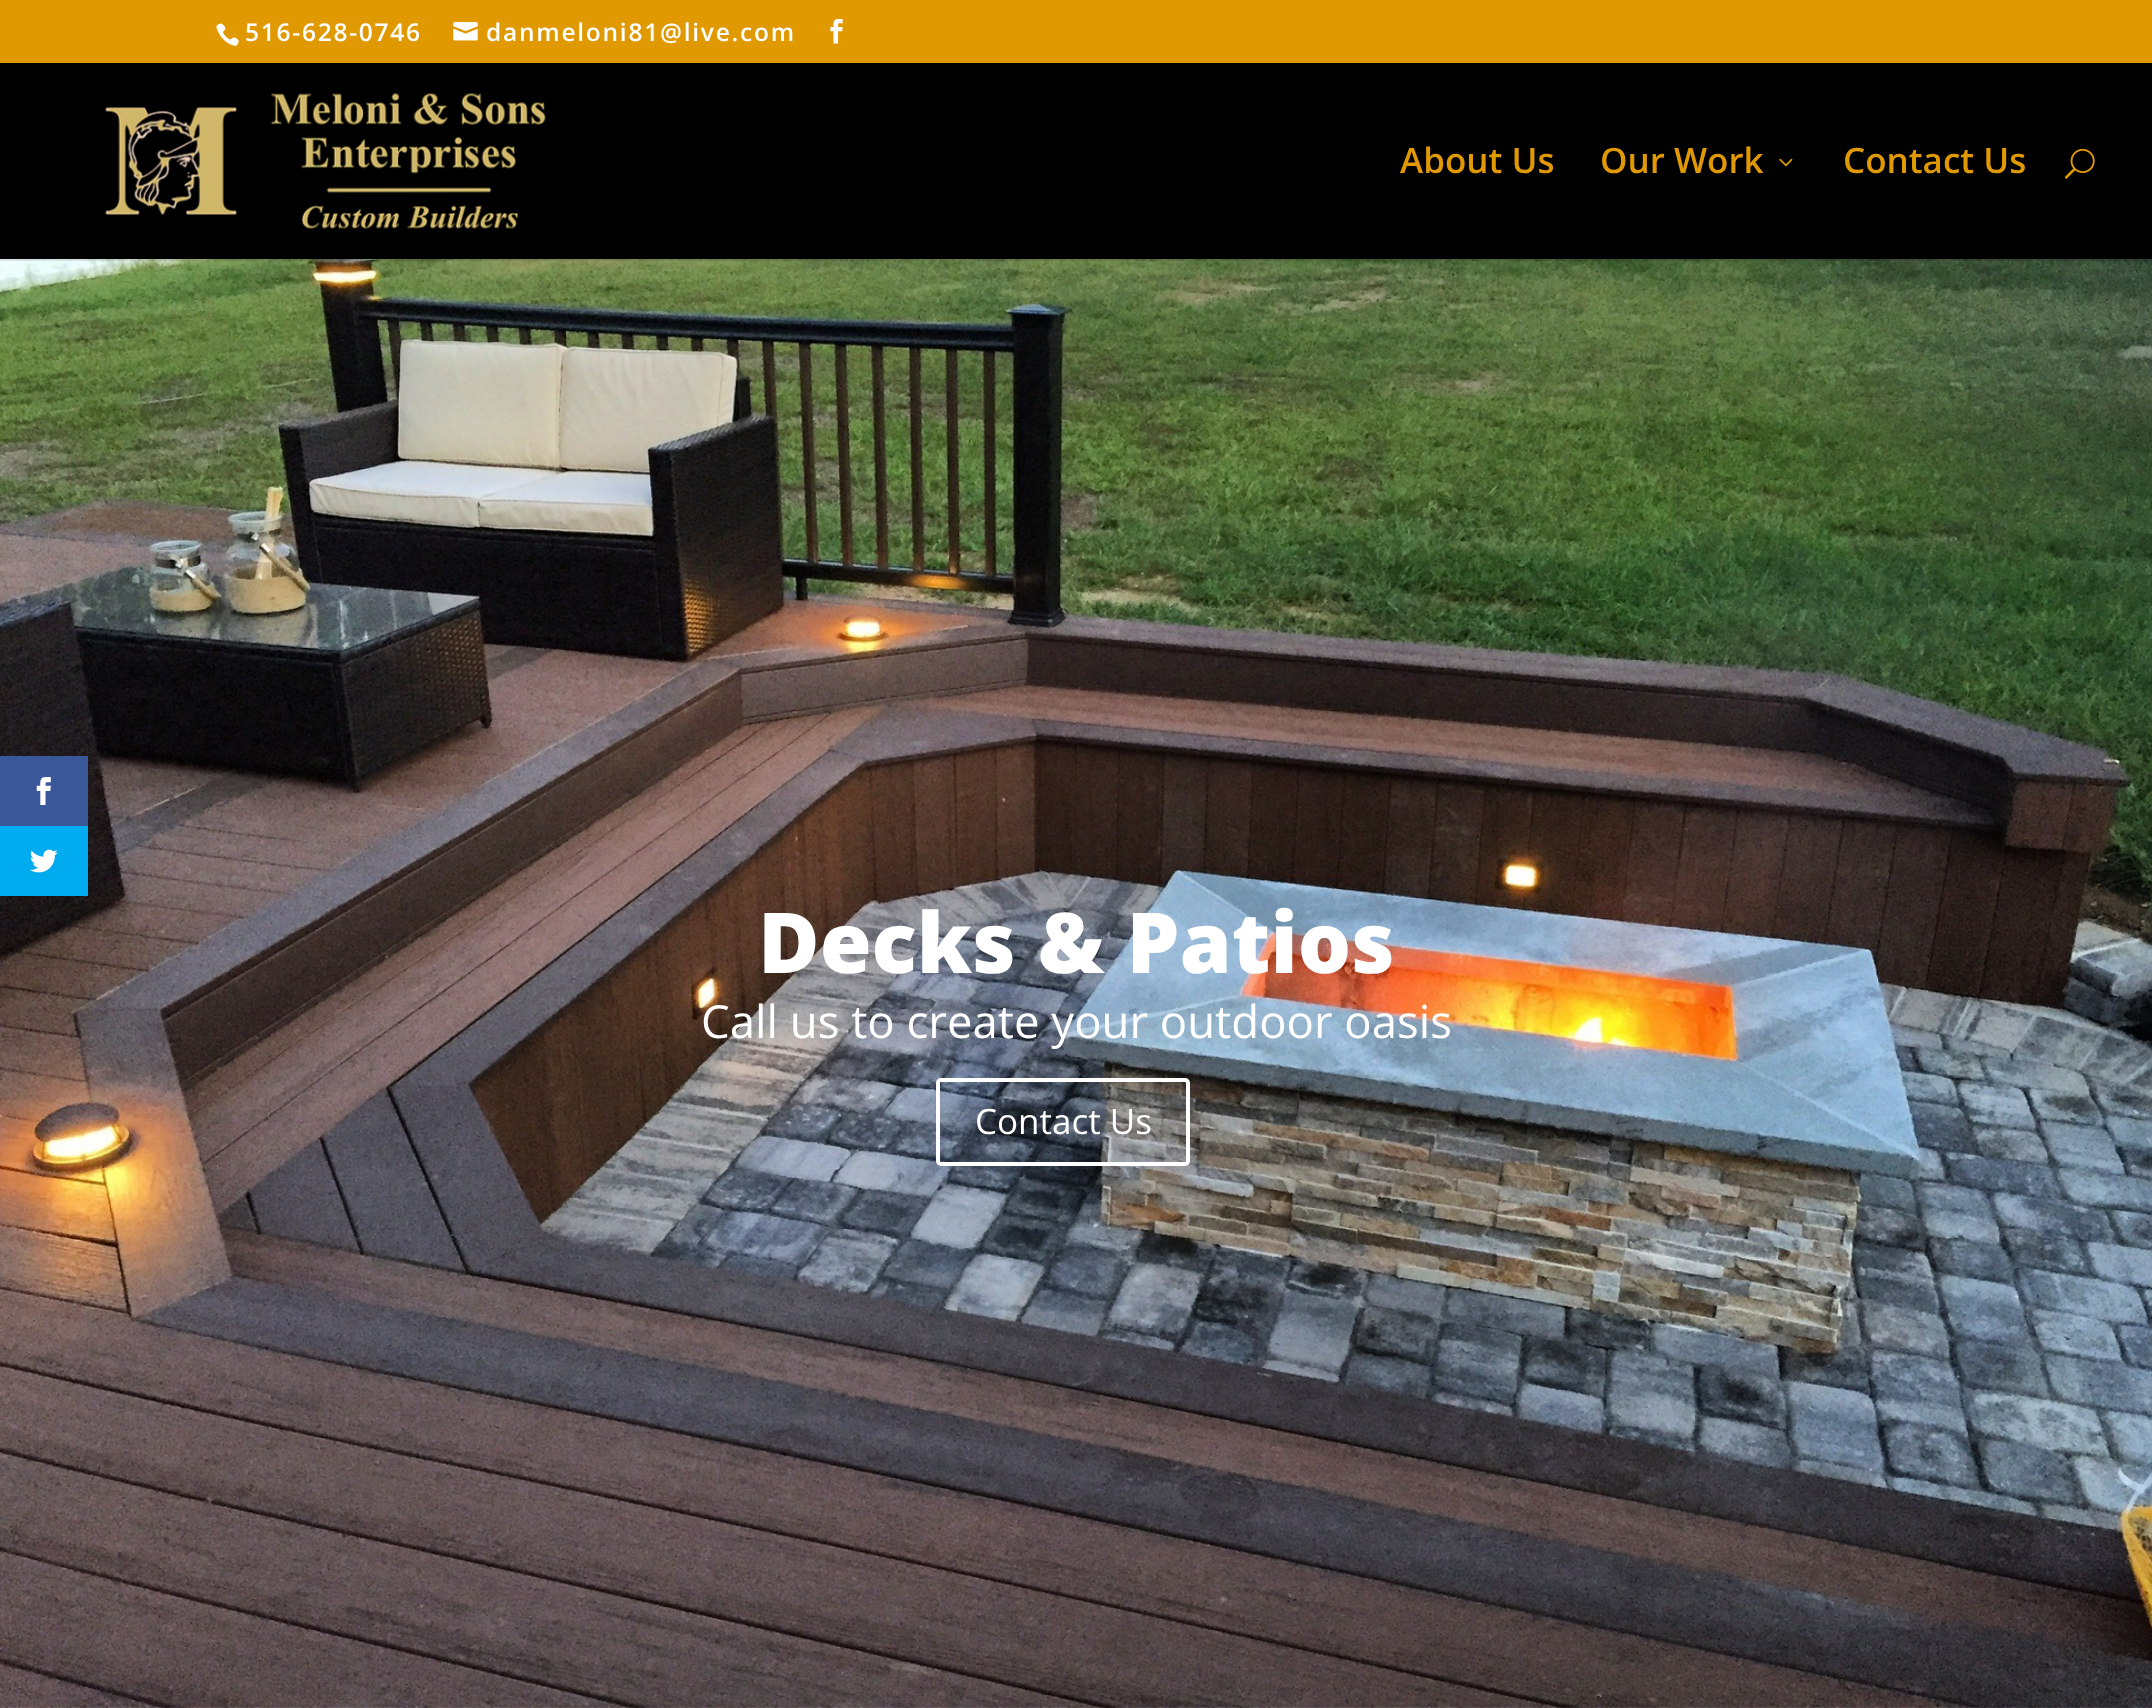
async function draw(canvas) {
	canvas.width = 2152;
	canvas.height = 1708;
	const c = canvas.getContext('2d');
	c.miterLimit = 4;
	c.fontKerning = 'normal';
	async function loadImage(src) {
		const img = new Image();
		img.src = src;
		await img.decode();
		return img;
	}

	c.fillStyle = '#fff';
	c.fillRect(0, 0, 2152, 1708);
	c.drawImage(await loadImage('img9.png'), 0, 259, 2152, 1449);
	c.fillStyle = '#3a579a';
	c.fillRect(0, 756, 88, 70);
	c.drawImage(await loadImage('img1.png'), 36, 777, 15, 28);
	c.fillStyle = '#00abf0';
	c.fillRect(0, 826, 88, 70);
	c.drawImage(await loadImage('img2.png'), 30, 849, 28, 24);
	c.fillStyle = '#e09900';
	c.fillRect(0, 0, 2152, 63);
	c.drawImage(await loadImage('img3.png'), 216, 23, 23, 23);
	c.letterSpacing = '1.75px';
	c.font = '600 24.5px Open Sans';
	c.fillStyle = '#fff';
	c.fillText('516-628-0746', 245, 41);
	c.drawImage(await loadImage('img4.png'), 453, 22, 25, 19);
	c.fillText('danmeloni81@live.com', 486, 41);
	c.drawImage(await loadImage('img5.png'), 830, 19, 13, 25);
	c.fillStyle = '#0000001a';
	c.beginPath();
	c.moveTo(0, 259);
	c.lineTo(0, 261);
	c.lineTo(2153, 261);
	c.lineTo(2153, 65);
	c.lineTo(2152, 65);
	c.lineTo(2152, 259);
	c.closePath();
	c.fill();
	c.fillStyle = '#000';
	c.fillRect(0, 63, 2152, 196);
	c.drawImage(await loadImage('img6.png'), 105, 92, 441, 137);
	c.letterSpacing = '0px';
	c.font = '600 35px Open Sans';
	c.fillStyle = '#e09900';
	c.fillText('About Us', 1400, 173);
	c.fillText('Our Work', 1600, 173);
	c.drawImage(await loadImage('img7.png'), 1779, 158, 14, 9);
	c.fillText('Contact Us', 1843, 173);
	c.drawImage(await loadImage('img8.png'), 2064, 148, 31, 31);
	c.font = '800 84px Open Sans';
	c.fillStyle = '#fff';
	c.fillText('Decks & Patios', 758, 973);
	c.font = '45.5px Open Sans';
	c.fillText('Call us to create your outdoor oasis', 701, 1038);
	c.beginPath();
	c.roundRect(938, 1080, 250, 84, 3);
	c.strokeStyle = '#fff';
	c.lineWidth = 4;
	c.stroke();
	c.font = '35px Open Sans';
	c.fillText('Contact Us', 975, 1134);
}

draw(document.querySelector('canvas'));
